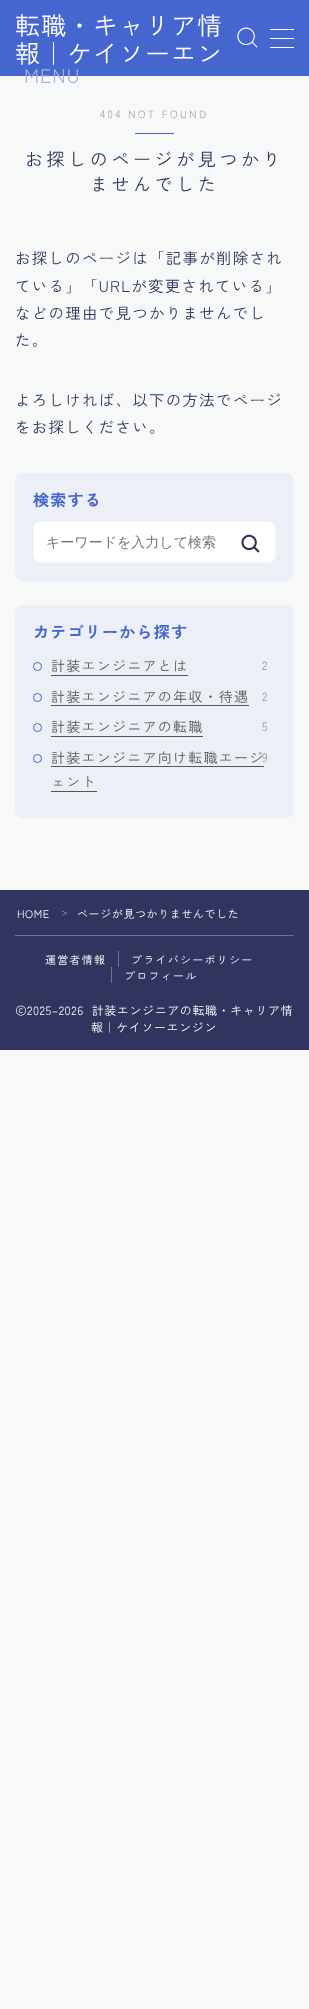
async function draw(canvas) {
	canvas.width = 309;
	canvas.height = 2009;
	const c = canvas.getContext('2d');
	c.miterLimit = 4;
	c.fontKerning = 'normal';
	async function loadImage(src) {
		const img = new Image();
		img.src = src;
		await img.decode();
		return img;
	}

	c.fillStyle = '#f7f9f9';
	c.fillRect(0, 0, 309, 2009);
	c.fillStyle = '#4466ce';
	c.fillRect(0, 0, 309, 76);
	c.letterSpacing = '1px';
	c.font = '25px Zen Kaku Gothic New';
	c.fillStyle = '#fff';
	c.fillText('転職・キャリア情', 15, 35);
	c.fillText('報｜ケイソーエン', 15, 63);
	c.drawImage(await loadImage('img1.png'), 237, 27, 21, 21);
	for (const [x, y, w, h, color] of [
		[270, 29, 24, 1, '#fff'],
		[270, 38, 24, 1, '#fff'],
		[270, 47, 24, 1, '#fff'],
	]) {
		c.fillStyle = color;
		c.fillRect(x, y, w, h);
	}
	c.font = '19.5px Zen Kaku Gothic New';
	c.fillStyle = '#a2b3e5';
	c.fillText('MENU', 24, 83);
	c.letterSpacing = '2.4px';
	c.font = '10.5px Zen Kaku Gothic New';
	c.fillStyle = '#9ea0b3';
	c.fillText('404 NOT FOUND', 100, 118);
	c.fillStyle = '#4466ce';
	c.fillRect(135, 133, 39, 1);
	c.letterSpacing = '3.6px';
	c.font = '18px Zen Kaku Gothic New';
	c.fillStyle = '#31345e';
	c.fillText('お探しのページが見つかり', 25, 166);
	c.fillText('ませんでした', 90, 191);
	c.letterSpacing = '1.25px';
	c.font = '15.5px Zen Kaku Gothic New';
	for (const [text, x, y] of [
		['お探しのページは「記事が削除され', 15, 264],
		['ている」「URLが変更されている」', 15, 292],
		['などの理由で見つかりませんでし', 15, 319],
		['た。', 15, 346],
		['よろしければ、以下の方法でページ', 15, 406],
		['をお探しください。', 15, 433],
	]) {
		c.fillText(text, x, y);
	}
	c.fillStyle = '#ecf0f6';
	c.beginPath();
	c.roundRect(15, 473, 279, 108, 8);
	c.fill();
	c.font = 'bold 16px Zen Kaku Gothic New';
	c.fillStyle = '#4466ce';
	c.fillText('検索する', 33, 506);
	c.fillStyle = '#fff';
	c.beginPath();
	c.roundRect(33.5, 521.5, 242, 41, 7.5);
	c.fill();
	c.strokeStyle = '#f6f6f6';
	c.stroke();
	c.letterSpacing = '0px';
	c.font = '500 14px WenQuanYi Zen Hei';
	c.fillStyle = '#757575';
	c.fillText('キーワードを入力して検索', 46, 547);
	c.drawImage(await loadImage('img2.png'), 241, 534, 19, 19);
	c.fillStyle = '#ecf0f6';
	c.beginPath();
	c.roundRect(15, 605, 279, 213, 8);
	c.fill();
	c.letterSpacing = '1.25px';
	c.font = 'bold 16px Zen Kaku Gothic New';
	c.fillStyle = '#4466ce';
	c.fillText('カテゴリーから探す', 33, 638);
	c.beginPath();
	c.arc(37.5, 666.5, 4, 0, 2 * Math.PI);
	c.strokeStyle = '#4466ce';
	c.stroke();
	c.font = '14px Zen Kaku Gothic New';
	c.fillStyle = '#565656';
	c.fillText('計装エンジニアとは', 51, 671);
	c.fillRect(51, 675, 137, 1);
	c.letterSpacing = '0px';
	c.font = '12px Zen Kaku Gothic New';
	c.fillStyle = '#929496';
	c.fillText('2', 262, 670);
	c.beginPath();
	c.arc(37.5, 697.5, 4, 0, 2 * Math.PI);
	c.stroke();
	c.letterSpacing = '1.25px';
	c.font = '14px Zen Kaku Gothic New';
	c.fillStyle = '#565656';
	c.fillText('計装エンジニアの年収・待遇', 51, 702);
	c.fillRect(51, 705, 198, 1);
	c.letterSpacing = '0px';
	c.font = '12px Zen Kaku Gothic New';
	c.fillStyle = '#929496';
	c.fillText('2', 262, 701);
	c.beginPath();
	c.arc(37.5, 727.5, 4, 0, 2 * Math.PI);
	c.stroke();
	c.letterSpacing = '1.25px';
	c.font = '14px Zen Kaku Gothic New';
	c.fillStyle = '#565656';
	c.fillText('計装エンジニアの転職', 51, 732);
	c.fillRect(51, 736, 152, 1);
	c.letterSpacing = '0px';
	c.font = '12px Zen Kaku Gothic New';
	c.fillStyle = '#929496';
	c.fillText('5', 262, 731);
	c.beginPath();
	c.arc(37.5, 758.5, 4, 0, 2 * Math.PI);
	c.stroke();
	c.letterSpacing = '1.25px';
	c.font = '14px Zen Kaku Gothic New';
	c.fillStyle = '#565656';
	c.fillText('計装エンジニア向け転職エージ', 51, 763);
	c.fillRect(51, 766, 213, 1);
	c.letterSpacing = '0px';
	c.font = '12px Zen Kaku Gothic New';
	c.fillStyle = '#929496';
	c.fillText('9', 262, 762);
	c.letterSpacing = '1.25px';
	c.font = '14px Zen Kaku Gothic New';
	c.fillStyle = '#565656';
	c.fillText('ェント', 51, 787);
	c.fillRect(51, 791, 46, 1);
	c.fillStyle = '#31345e';
	c.fillRect(0, 890, 309, 160);
	c.letterSpacing = '0.6px';
	c.font = '11px Zen Kaku Gothic New';
	c.fillStyle = '#fff';
	c.fillText('HOME', 17, 918);
	c.letterSpacing = '0px';
	c.font = '7px Zen Kaku Gothic New';
	c.fillStyle = '#c1c2cf';
	c.fillText('＞', 61, 916);
	c.letterSpacing = '0.6px';
	c.font = '11px Zen Kaku Gothic New';
	c.fillStyle = '#fff';
	c.fillText('ページが見つかりませんでした', 77, 918);
	c.fillStyle = '#6f718e';
	c.fillRect(15, 935, 279, 1);
	c.letterSpacing = '1.25px';
	c.fillStyle = '#fff';
	c.fillText('運営者情報', 45, 964);
	c.fillStyle = '#6f718e';
	c.fillRect(118, 951, 1, 16);
	c.fillStyle = '#fff';
	c.fillText('プライバシーポリシー', 131, 964);
	c.fillStyle = '#6f718e';
	c.fillRect(111, 967, 1, 16);
	c.fillStyle = '#fff';
	c.fillText('プロフィール', 124, 980);
	c.drawImage(await loadImage('img3.png'), 16, 1005, 10, 11);
	c.letterSpacing = '0.6px';
	c.font = '12px Zen Kaku Gothic New';
	c.fillText('2025–2026  計装エンジニアの転職・キャリア情', 27, 1015);
	c.fillText('報｜ケイソーエンジン', 91, 1032);
}

draw(document.querySelector('canvas'));
